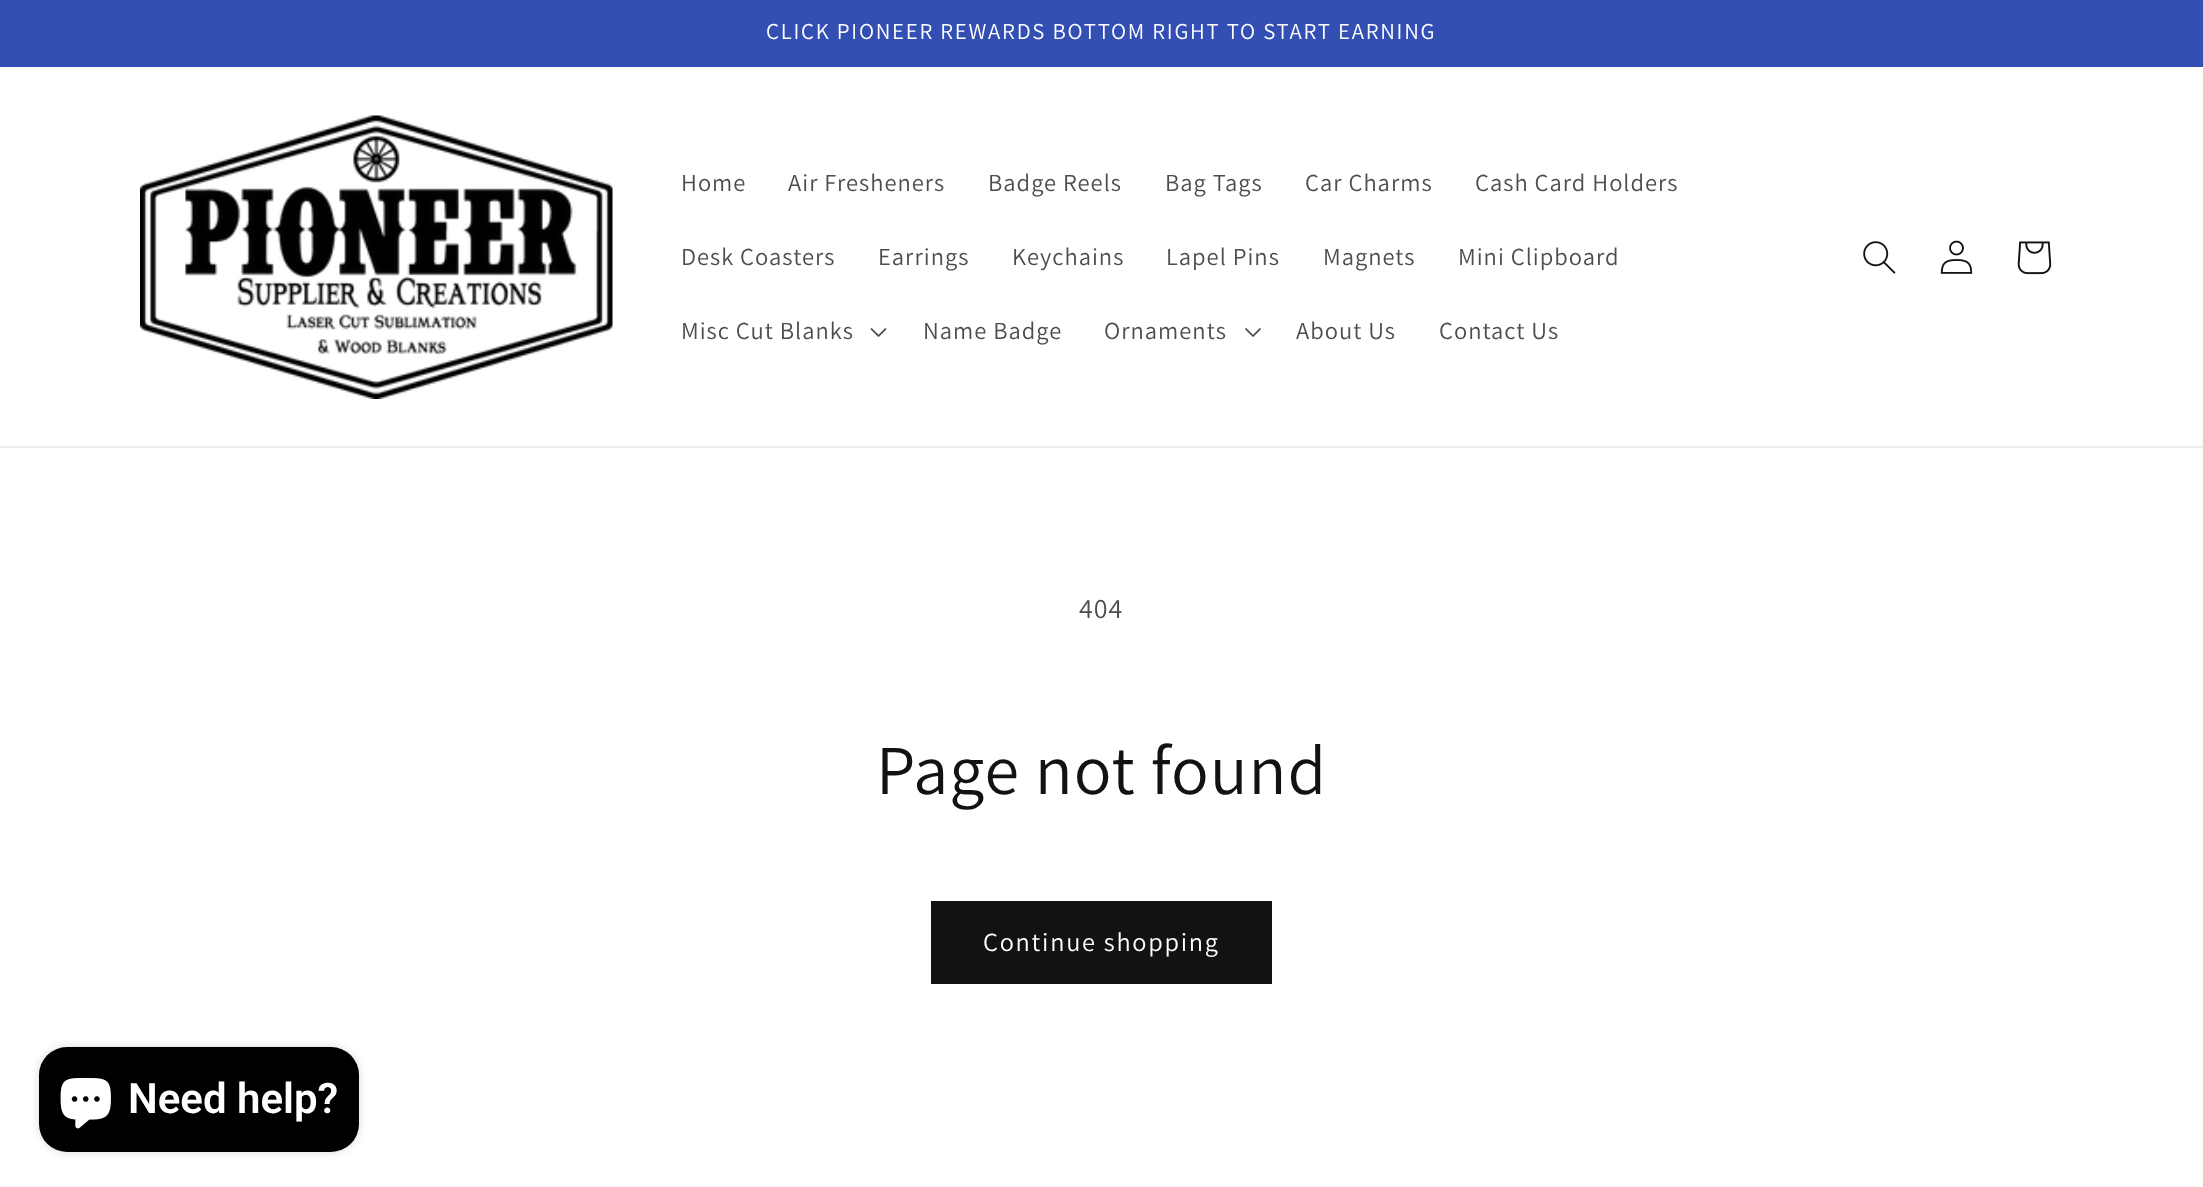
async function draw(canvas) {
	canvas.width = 2203;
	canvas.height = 1187;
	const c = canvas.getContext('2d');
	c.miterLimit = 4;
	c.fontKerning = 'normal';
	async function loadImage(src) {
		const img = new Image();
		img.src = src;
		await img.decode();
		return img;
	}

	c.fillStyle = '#fff';
	c.fillRect(0, 0, 2203, 1187);
	c.fillStyle = '#334fb4';
	c.fillRect(0, 0, 2203, 67);
	c.letterSpacing = '1.75px';
	c.font = '22.75px Assistant';
	c.fillStyle = '#fff';
	c.fillText('CLICK PIONEER REWARDS BOTTOM RIGHT TO START EARNING', 766, 39);
	c.fillStyle = '#ececec';
	c.fillRect(0, 446, 2203, 2);
	c.drawImage(await loadImage('img1.png'), 140, 115, 473, 284);
	c.letterSpacing = '1px';
	c.font = '24.5px Assistant';
	c.fillStyle = '#4d4d4d';
	for (const [text, x, y] of [
		['Home', 681, 191],
		['Air Fresheners', 788, 191],
		['Badge Reels', 988, 191],
		['Bag Tags', 1165, 191],
		['Car Charms', 1305, 191],
		['Cash Card Holders', 1475, 191],
		['Desk Coasters', 681, 265],
		['Earrings', 878, 265],
		['Keychains', 1012, 265],
		['Lapel Pins', 1166, 265],
		['Magnets', 1323, 265],
		['Mini Clipboard', 1458, 265],
		['Misc Cut Blanks', 681, 339],
	]) {
		c.fillText(text, x, y);
	}
	c.drawImage(await loadImage('img2.png'), 870, 328, 17, 9);
	c.fillText('Name Badge', 923, 339);
	c.fillText('Ornaments', 1104, 339);
	c.drawImage(await loadImage('img3.png'), 1245, 328, 16, 9);
	c.fillText('About Us', 1296, 339);
	c.fillText('Contact Us', 1439, 339);
	c.drawImage(await loadImage('img4.png'), 1863, 241, 33, 33);
	c.drawImage(await loadImage('img5.png'), 1940, 240, 33, 34);
	c.drawImage(await loadImage('img6.png'), 2017, 241, 35, 34);
	c.font = '28px Assistant';
	c.fillText('404', 1079, 618);
	c.font = '70px Assistant';
	c.fillStyle = '#121212';
	c.fillText('Page not found', 876, 794);
	c.fillRect(931, 901, 341, 83);
	c.letterSpacing = '1.75px';
	c.font = '26.25px Assistant';
	c.fillStyle = '#fff';
	c.fillText('Continue shopping', 983, 951);
	c.fillStyle = '#00000026';
	c.filter = 'blur(4.5px)';
	c.beginPath();
	c.roundRect(39, 1047, 320, 105, 28);
	c.fill();
	c.filter = 'none';
	c.fillStyle = '#000';
	c.beginPath();
	c.roundRect(39, 1047, 320, 105, 28);
	c.fill();
	c.drawImage(await loadImage('img7.png'), 60, 1078, 51, 51);
	c.letterSpacing = '0px';
	c.font = '600 42px Roboto';
	c.fillStyle = '#fff';
	c.fillText('Need help?', 128, 1113);
}

draw(document.querySelector('canvas'));
